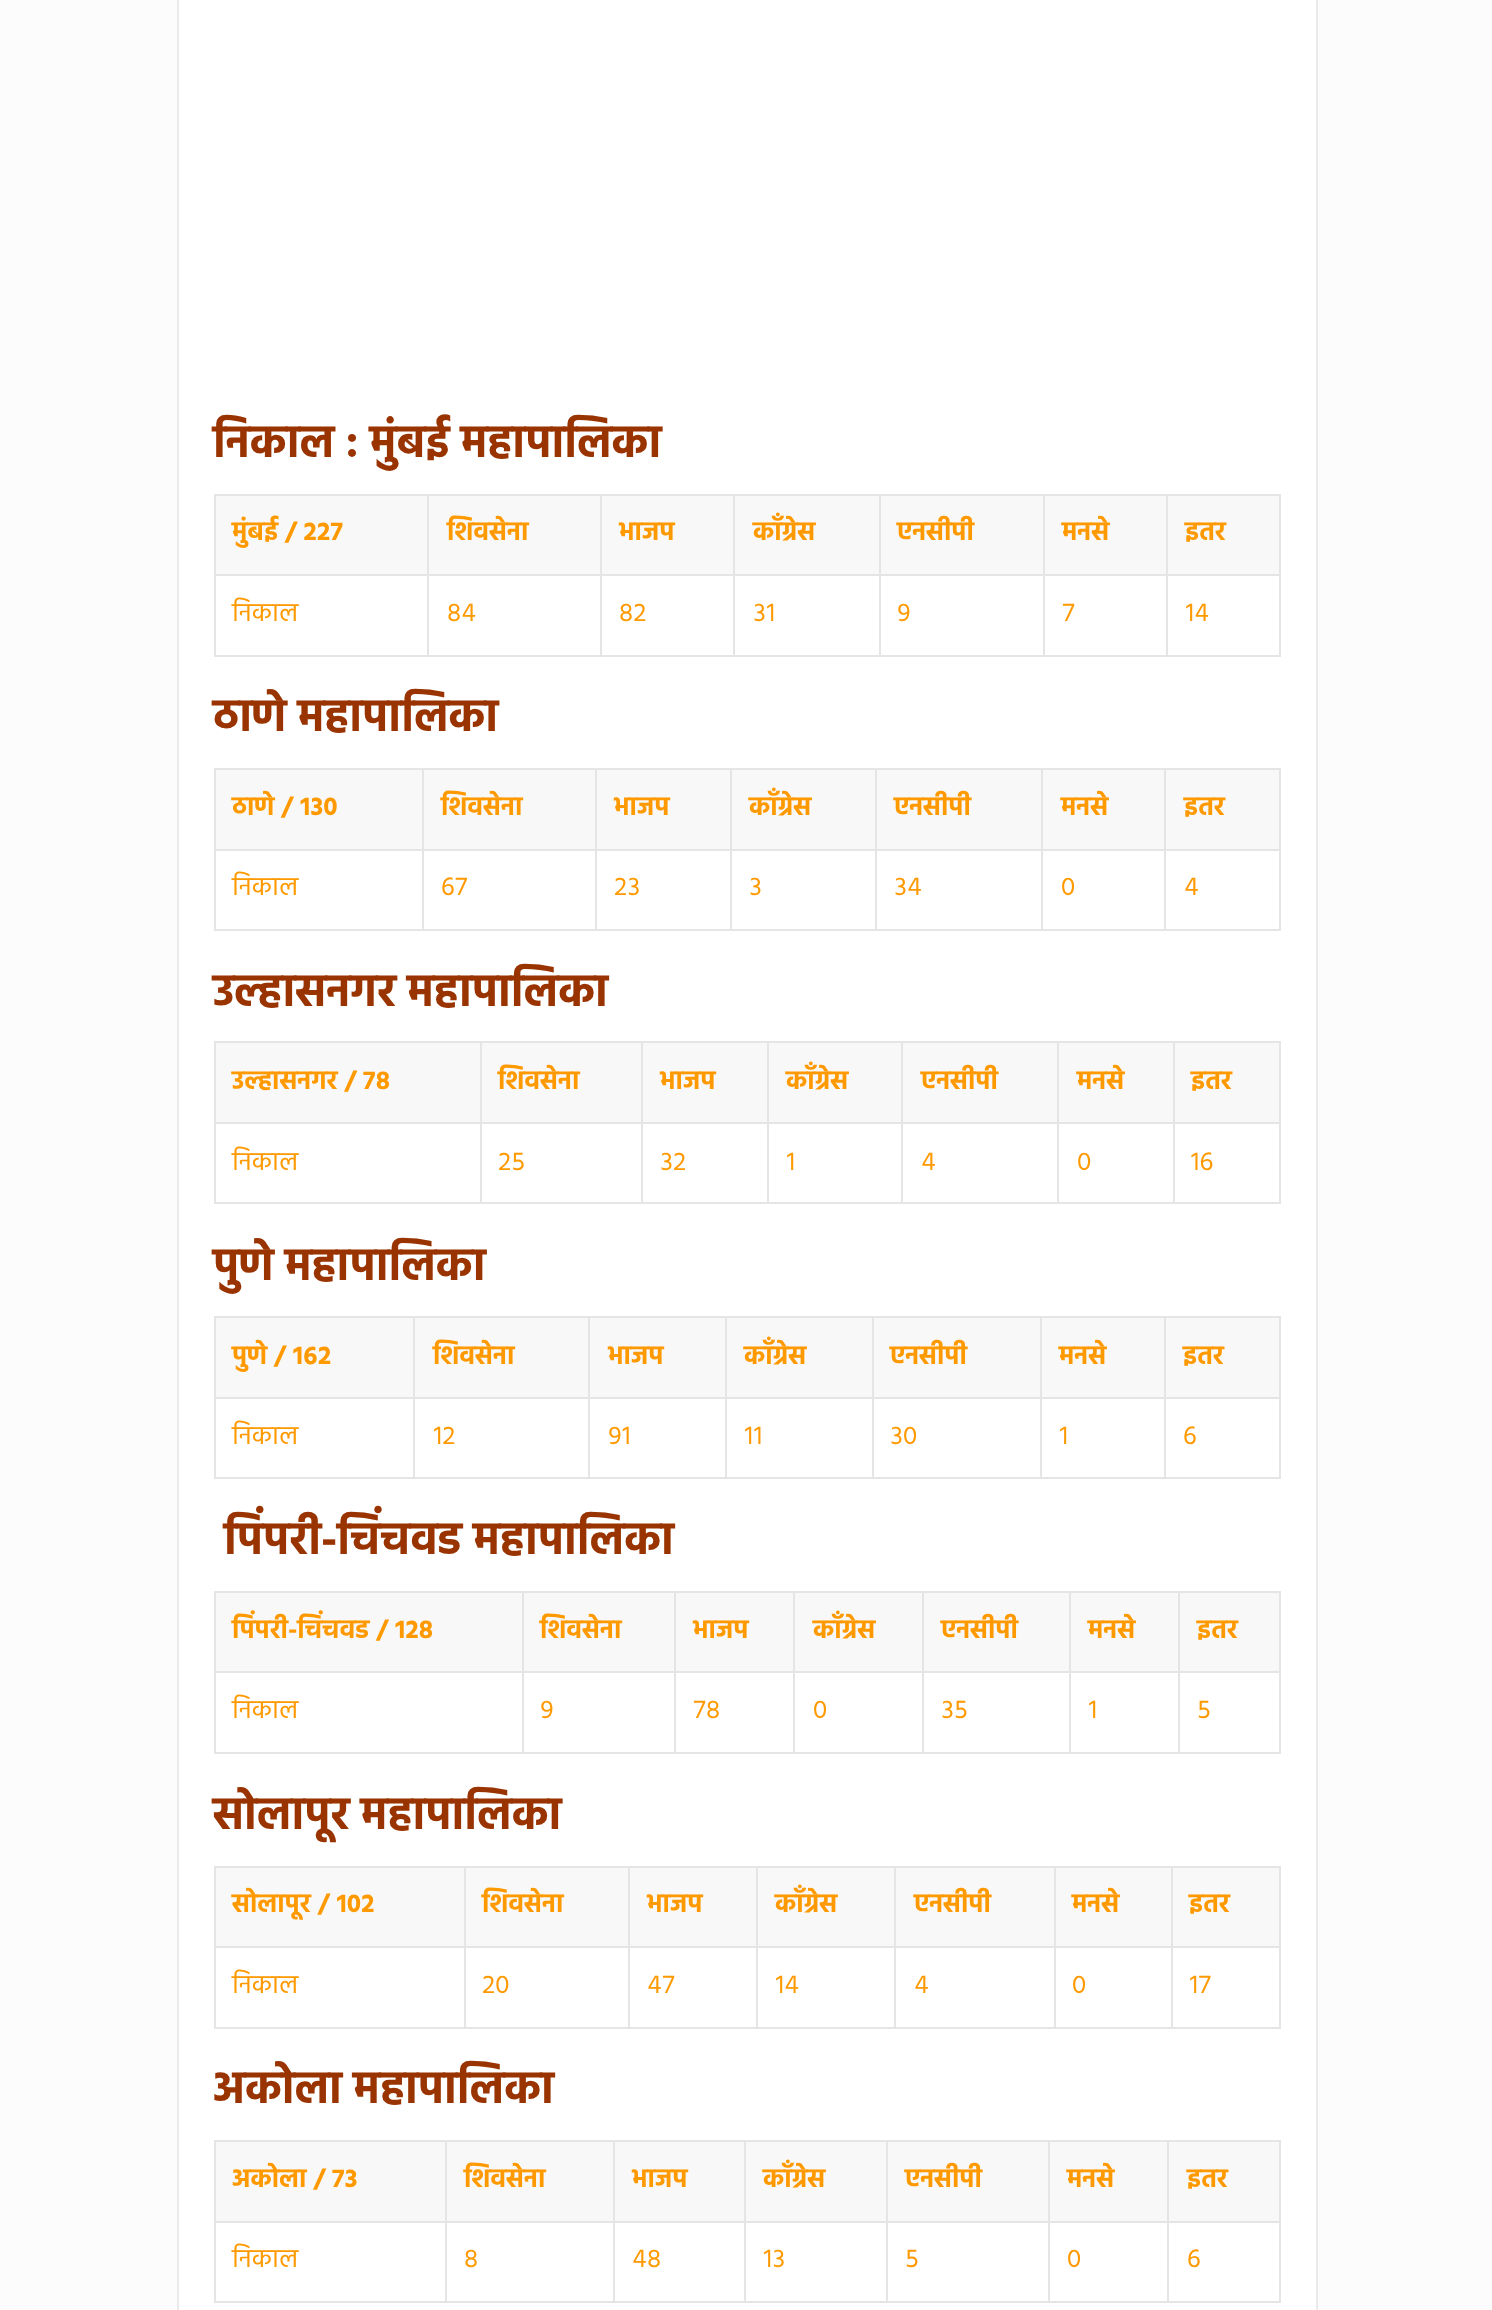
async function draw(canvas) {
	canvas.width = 1492;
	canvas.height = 2310;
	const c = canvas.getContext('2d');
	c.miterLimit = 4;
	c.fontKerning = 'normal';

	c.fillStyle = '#fcfcfc';
	c.fillRect(0, 0, 1492, 2310);
	c.fillStyle = '#fff';
	c.beginPath();
	c.rect(178, -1, 1139, 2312);
	c.fill();
	c.strokeStyle = '#eaeaea';
	c.lineWidth = 2;
	c.stroke();
	c.font = 'bold 45.5px Hind';
	c.fillStyle = '#930';
	c.fillText('निकाल : मुंबई महापालिका', 213, 457);
	for (const [x, y, w, h, color] of [
		[216, 496, 211, 78, '#f8f8f8'],
		[1166, 494, 115, 2, '#e5e5e5'],
		[1166, 574, 115, 2, '#e5e5e5'],
		[1279, 574, 2, 82, '#e5e5e5'],
		[1166, 655, 115, 2, '#e5e5e5'],
		[1166, 574, 2, 82, '#e5e5e5'],
		[1043, 574, 124, 2, '#e5e5e5'],
		[1166, 494, 2, 82, '#e5e5e5'],
		[1043, 494, 124, 2, '#e5e5e5'],
		[1043, 655, 124, 2, '#e5e5e5'],
		[1043, 574, 2, 82, '#e5e5e5'],
		[879, 574, 166, 2, '#e5e5e5'],
		[1043, 494, 2, 82, '#e5e5e5'],
		[879, 494, 166, 2, '#e5e5e5'],
		[879, 655, 166, 2, '#e5e5e5'],
		[879, 574, 2, 82, '#e5e5e5'],
		[733, 574, 147, 2, '#e5e5e5'],
		[879, 494, 2, 82, '#e5e5e5'],
		[733, 494, 147, 2, '#e5e5e5'],
		[733, 655, 147, 2, '#e5e5e5'],
		[733, 574, 2, 82, '#e5e5e5'],
		[600, 574, 135, 2, '#e5e5e5'],
		[733, 494, 2, 82, '#e5e5e5'],
		[600, 494, 135, 2, '#e5e5e5'],
		[600, 655, 135, 2, '#e5e5e5'],
		[600, 574, 2, 82, '#e5e5e5'],
		[427, 574, 175, 2, '#e5e5e5'],
		[600, 494, 2, 82, '#e5e5e5'],
		[427, 494, 175, 2, '#e5e5e5'],
		[427, 655, 175, 2, '#e5e5e5'],
		[427, 574, 2, 82, '#e5e5e5'],
		[214, 574, 215, 2, '#e5e5e5'],
		[427, 494, 2, 82, '#e5e5e5'],
		[214, 494, 215, 2, '#e5e5e5'],
		[214, 655, 215, 2, '#e5e5e5'],
		[214, 574, 2, 82, '#e5e5e5'],
		[214, 494, 2, 82, '#e5e5e5'],
	]) {
		c.fillStyle = color;
		c.fillRect(x, y, w, h);
	}
	c.font = 'bold 26.25px Hind';
	c.fillStyle = '#f90';
	c.fillText('मुंबई / २२७', 232, 540);
	c.fillStyle = '#f8f8f8';
	c.fillRect(429, 496, 171, 78);
	c.fillStyle = '#f90';
	c.fillText('शिवसेना', 447, 540);
	c.fillStyle = '#f8f8f8';
	c.fillRect(602, 496, 131, 78);
	c.fillStyle = '#f90';
	c.fillText('भाजप', 619, 540);
	c.fillStyle = '#f8f8f8';
	c.fillRect(735, 496, 144, 78);
	c.fillStyle = '#f90';
	c.fillText('काँग्रेस', 753, 540);
	c.fillStyle = '#f8f8f8';
	c.fillRect(881, 496, 162, 78);
	c.fillStyle = '#f90';
	c.fillText('एनसीपी', 897, 540);
	c.fillStyle = '#f8f8f8';
	c.fillRect(1045, 496, 121, 78);
	c.fillStyle = '#f90';
	c.fillText('मनसे', 1062, 540);
	c.fillStyle = '#f8f8f8';
	c.fillRect(1168, 496, 111, 78);
	c.fillStyle = '#e5e5e5';
	c.fillRect(1279, 494, 2, 82);
	c.fillStyle = '#f90';
	c.fillText('इतर', 1185, 540);
	c.font = '26.25px Hind';
	for (const [text, x, y] of [
		['निकाल', 232, 621],
		['८४', 447, 621],
		['८२', 619, 621],
		['३१', 753, 621],
		['९', 897, 621],
		['७', 1062, 621],
		['१४', 1185, 621],
	]) {
		c.fillText(text, x, y);
	}
	c.font = 'bold 45.5px Hind';
	c.fillStyle = '#930';
	c.fillText('ठाणे महापालिका', 213, 731);
	for (const [x, y, w, h, color] of [
		[216, 770, 206, 79, '#f8f8f8'],
		[1164, 768, 117, 2, '#e5e5e5'],
		[1164, 849, 117, 2, '#e5e5e5'],
		[1279, 849, 2, 82, '#e5e5e5'],
		[1164, 929, 117, 2, '#e5e5e5'],
		[1164, 849, 2, 82, '#e5e5e5'],
		[1041, 849, 125, 2, '#e5e5e5'],
		[1164, 768, 2, 83, '#e5e5e5'],
		[1041, 768, 125, 2, '#e5e5e5'],
		[1041, 929, 125, 2, '#e5e5e5'],
		[1041, 849, 2, 82, '#e5e5e5'],
		[875, 849, 168, 2, '#e5e5e5'],
		[1041, 768, 2, 83, '#e5e5e5'],
		[875, 768, 168, 2, '#e5e5e5'],
		[875, 929, 168, 2, '#e5e5e5'],
		[875, 849, 2, 82, '#e5e5e5'],
		[730, 849, 147, 2, '#e5e5e5'],
		[875, 768, 2, 83, '#e5e5e5'],
		[730, 768, 147, 2, '#e5e5e5'],
		[730, 929, 147, 2, '#e5e5e5'],
		[730, 849, 2, 82, '#e5e5e5'],
		[595, 849, 137, 2, '#e5e5e5'],
		[730, 768, 2, 83, '#e5e5e5'],
		[595, 768, 137, 2, '#e5e5e5'],
		[595, 929, 137, 2, '#e5e5e5'],
		[595, 849, 2, 82, '#e5e5e5'],
		[422, 849, 175, 2, '#e5e5e5'],
		[595, 768, 2, 83, '#e5e5e5'],
		[422, 768, 175, 2, '#e5e5e5'],
		[422, 929, 175, 2, '#e5e5e5'],
		[422, 849, 2, 82, '#e5e5e5'],
		[214, 849, 210, 2, '#e5e5e5'],
		[422, 768, 2, 83, '#e5e5e5'],
		[214, 768, 210, 2, '#e5e5e5'],
		[214, 929, 210, 2, '#e5e5e5'],
		[214, 849, 2, 82, '#e5e5e5'],
		[214, 768, 2, 83, '#e5e5e5'],
	]) {
		c.fillStyle = color;
		c.fillRect(x, y, w, h);
	}
	c.font = 'bold 26.25px Hind';
	c.fillStyle = '#f90';
	c.fillText('ठाणे / १३०', 232, 815);
	c.fillStyle = '#f8f8f8';
	c.fillRect(424, 770, 171, 79);
	c.fillStyle = '#f90';
	c.fillText('शिवसेना', 441, 815);
	c.fillStyle = '#f8f8f8';
	c.fillRect(597, 770, 133, 79);
	c.fillStyle = '#f90';
	c.fillText('भाजप', 614, 815);
	c.fillStyle = '#f8f8f8';
	c.fillRect(732, 770, 143, 79);
	c.fillStyle = '#f90';
	c.fillText('काँग्रेस', 749, 815);
	c.fillStyle = '#f8f8f8';
	c.fillRect(877, 770, 164, 79);
	c.fillStyle = '#f90';
	c.fillText('एनसीपी', 894, 815);
	c.fillStyle = '#f8f8f8';
	c.fillRect(1043, 770, 121, 79);
	c.fillStyle = '#f90';
	c.fillText('मनसे', 1061, 815);
	c.fillStyle = '#f8f8f8';
	c.fillRect(1166, 770, 113, 79);
	c.fillStyle = '#e5e5e5';
	c.fillRect(1279, 768, 2, 83);
	c.fillStyle = '#f90';
	c.fillText('इतर', 1184, 815);
	c.font = '26.25px Hind';
	for (const [text, x, y] of [
		['निकाल', 232, 895],
		['६७', 441, 895],
		['२३', 614, 895],
		['३', 749, 895],
		['३४', 894, 895],
		['०', 1061, 895],
		['४', 1184, 895],
	]) {
		c.fillText(text, x, y);
	}
	c.font = 'bold 45.5px Hind';
	c.fillStyle = '#930';
	c.fillText('उल्हासनगर महापालिका', 213, 1006);
	for (const [x, y, w, h, color] of [
		[216, 1043, 264, 79, '#f8f8f8'],
		[1173, 1041, 108, 2, '#e5e5e5'],
		[1173, 1122, 108, 2, '#e5e5e5'],
		[1279, 1122, 2, 82, '#e5e5e5'],
		[1173, 1202, 108, 2, '#e5e5e5'],
		[1173, 1122, 2, 82, '#e5e5e5'],
		[1057, 1122, 117, 2, '#e5e5e5'],
		[1173, 1041, 2, 83, '#e5e5e5'],
		[1057, 1041, 117, 2, '#e5e5e5'],
		[1057, 1202, 117, 2, '#e5e5e5'],
		[1057, 1122, 2, 82, '#e5e5e5'],
		[901, 1122, 158, 2, '#e5e5e5'],
		[1057, 1041, 2, 83, '#e5e5e5'],
		[901, 1041, 158, 2, '#e5e5e5'],
		[901, 1202, 158, 2, '#e5e5e5'],
		[901, 1122, 2, 82, '#e5e5e5'],
		[767, 1122, 136, 2, '#e5e5e5'],
		[901, 1041, 2, 83, '#e5e5e5'],
		[767, 1041, 136, 2, '#e5e5e5'],
		[767, 1202, 136, 2, '#e5e5e5'],
		[767, 1122, 2, 82, '#e5e5e5'],
		[641, 1122, 127, 2, '#e5e5e5'],
		[767, 1041, 2, 83, '#e5e5e5'],
		[641, 1041, 127, 2, '#e5e5e5'],
		[641, 1202, 127, 2, '#e5e5e5'],
		[641, 1122, 2, 82, '#e5e5e5'],
		[480, 1122, 162, 2, '#e5e5e5'],
		[641, 1041, 2, 83, '#e5e5e5'],
		[480, 1041, 162, 2, '#e5e5e5'],
		[480, 1202, 162, 2, '#e5e5e5'],
		[480, 1122, 2, 82, '#e5e5e5'],
		[214, 1122, 267, 2, '#e5e5e5'],
		[480, 1041, 2, 83, '#e5e5e5'],
		[214, 1041, 267, 2, '#e5e5e5'],
		[214, 1202, 267, 2, '#e5e5e5'],
		[214, 1122, 2, 82, '#e5e5e5'],
		[214, 1041, 2, 83, '#e5e5e5'],
	]) {
		c.fillStyle = color;
		c.fillRect(x, y, w, h);
	}
	c.font = 'bold 26.25px Hind';
	c.fillStyle = '#f90';
	c.fillText('उल्हासनगर / ७८', 232, 1089);
	c.fillStyle = '#f8f8f8';
	c.fillRect(482, 1043, 159, 79);
	c.fillStyle = '#f90';
	c.fillText('शिवसेना', 498, 1089);
	c.fillStyle = '#f8f8f8';
	c.fillRect(643, 1043, 124, 79);
	c.fillStyle = '#f90';
	c.fillText('भाजप', 660, 1089);
	c.fillStyle = '#f8f8f8';
	c.fillRect(769, 1043, 132, 79);
	c.fillStyle = '#f90';
	c.fillText('काँग्रेस', 786, 1089);
	c.fillStyle = '#f8f8f8';
	c.fillRect(903, 1043, 154, 79);
	c.fillStyle = '#f90';
	c.fillText('एनसीपी', 921, 1089);
	c.fillStyle = '#f8f8f8';
	c.fillRect(1059, 1043, 114, 79);
	c.fillStyle = '#f90';
	c.fillText('मनसे', 1077, 1089);
	c.fillStyle = '#f8f8f8';
	c.fillRect(1175, 1043, 104, 79);
	c.fillStyle = '#e5e5e5';
	c.fillRect(1279, 1041, 2, 83);
	c.fillStyle = '#f90';
	c.fillText('इतर', 1191, 1089);
	c.font = '26.25px Hind';
	for (const [text, x, y] of [
		['निकाल', 232, 1170],
		['२५', 498, 1170],
		['३२', 660, 1170],
		['१', 786, 1170],
		['४', 921, 1170],
		['0', 1077, 1170],
		['16', 1191, 1170],
	]) {
		c.fillText(text, x, y);
	}
	c.font = 'bold 45.5px Hind';
	c.fillStyle = '#930';
	c.fillText('पुणे महापालिका', 213, 1280);
	for (const [x, y, w, h, color] of [
		[216, 1318, 197, 79, '#f8f8f8'],
		[1164, 1316, 117, 2, '#e5e5e5'],
		[1164, 1397, 117, 2, '#e5e5e5'],
		[1279, 1397, 2, 82, '#e5e5e5'],
		[1164, 1477, 117, 2, '#e5e5e5'],
		[1164, 1397, 2, 82, '#e5e5e5'],
		[1040, 1397, 126, 2, '#e5e5e5'],
		[1164, 1316, 2, 82, '#e5e5e5'],
		[1040, 1316, 126, 2, '#e5e5e5'],
		[1040, 1477, 126, 2, '#e5e5e5'],
		[1040, 1397, 2, 82, '#e5e5e5'],
		[872, 1397, 169, 2, '#e5e5e5'],
		[1040, 1316, 2, 82, '#e5e5e5'],
		[872, 1316, 169, 2, '#e5e5e5'],
		[872, 1477, 169, 2, '#e5e5e5'],
		[872, 1397, 2, 82, '#e5e5e5'],
		[725, 1397, 148, 2, '#e5e5e5'],
		[872, 1316, 2, 82, '#e5e5e5'],
		[725, 1316, 148, 2, '#e5e5e5'],
		[725, 1477, 148, 2, '#e5e5e5'],
		[725, 1397, 2, 82, '#e5e5e5'],
		[588, 1397, 138, 2, '#e5e5e5'],
		[725, 1316, 2, 82, '#e5e5e5'],
		[588, 1316, 138, 2, '#e5e5e5'],
		[588, 1477, 138, 2, '#e5e5e5'],
		[588, 1397, 2, 82, '#e5e5e5'],
		[413, 1397, 177, 2, '#e5e5e5'],
		[588, 1316, 2, 82, '#e5e5e5'],
		[413, 1316, 177, 2, '#e5e5e5'],
		[413, 1477, 177, 2, '#e5e5e5'],
		[413, 1397, 2, 82, '#e5e5e5'],
		[214, 1397, 201, 2, '#e5e5e5'],
		[413, 1316, 2, 82, '#e5e5e5'],
		[214, 1316, 201, 2, '#e5e5e5'],
		[214, 1477, 201, 2, '#e5e5e5'],
		[214, 1397, 2, 82, '#e5e5e5'],
		[214, 1316, 2, 82, '#e5e5e5'],
	]) {
		c.fillStyle = color;
		c.fillRect(x, y, w, h);
	}
	c.font = 'bold 26.25px Hind';
	c.fillStyle = '#f90';
	c.fillText('पुणे / १६२', 232, 1364);
	c.fillStyle = '#f8f8f8';
	c.fillRect(415, 1318, 173, 79);
	c.fillStyle = '#f90';
	c.fillText('शिवसेना', 433, 1364);
	c.fillStyle = '#f8f8f8';
	c.fillRect(590, 1318, 135, 79);
	c.fillStyle = '#f90';
	c.fillText('भाजप', 608, 1364);
	c.fillStyle = '#f8f8f8';
	c.fillRect(727, 1318, 145, 79);
	c.fillStyle = '#f90';
	c.fillText('काँग्रेस', 744, 1364);
	c.fillStyle = '#f8f8f8';
	c.fillRect(874, 1318, 166, 79);
	c.fillStyle = '#f90';
	c.fillText('एनसीपी', 890, 1364);
	c.fillStyle = '#f8f8f8';
	c.fillRect(1042, 1318, 122, 79);
	c.fillStyle = '#f90';
	c.fillText('मनसे', 1059, 1364);
	c.fillStyle = '#f8f8f8';
	c.fillRect(1166, 1318, 113, 79);
	c.fillStyle = '#e5e5e5';
	c.fillRect(1279, 1316, 2, 82);
	c.fillStyle = '#f90';
	c.fillText('इतर', 1183, 1364);
	c.font = '26.25px Hind';
	for (const [text, x, y] of [
		['निकाल', 232, 1444],
		['१२', 433, 1444],
		['९१', 608, 1444],
		['११', 744, 1444],
		['३०', 890, 1444],
		['१', 1059, 1444],
		['६', 1183, 1444],
	]) {
		c.fillText(text, x, y);
	}
	c.font = 'bold 45.5px Hind';
	c.fillStyle = '#930';
	c.fillText('पिंपरी-चिंचवड महापालिका', 224, 1554);
	for (const [x, y, w, h, color] of [
		[216, 1593, 306, 78, '#f8f8f8'],
		[1178, 1591, 103, 2, '#e5e5e5'],
		[1178, 1671, 103, 2, '#e5e5e5'],
		[1279, 1671, 2, 83, '#e5e5e5'],
		[1178, 1752, 103, 2, '#e5e5e5'],
		[1178, 1671, 2, 83, '#e5e5e5'],
		[1069, 1671, 111, 2, '#e5e5e5'],
		[1178, 1591, 2, 82, '#e5e5e5'],
		[1069, 1591, 111, 2, '#e5e5e5'],
		[1069, 1752, 111, 2, '#e5e5e5'],
		[1069, 1671, 2, 83, '#e5e5e5'],
		[922, 1671, 149, 2, '#e5e5e5'],
		[1069, 1591, 2, 82, '#e5e5e5'],
		[922, 1591, 149, 2, '#e5e5e5'],
		[922, 1752, 149, 2, '#e5e5e5'],
		[922, 1671, 2, 83, '#e5e5e5'],
		[793, 1671, 131, 2, '#e5e5e5'],
		[922, 1591, 2, 82, '#e5e5e5'],
		[793, 1591, 131, 2, '#e5e5e5'],
		[793, 1752, 131, 2, '#e5e5e5'],
		[793, 1671, 2, 83, '#e5e5e5'],
		[674, 1671, 121, 2, '#e5e5e5'],
		[793, 1591, 2, 82, '#e5e5e5'],
		[674, 1591, 121, 2, '#e5e5e5'],
		[674, 1752, 121, 2, '#e5e5e5'],
		[674, 1671, 2, 83, '#e5e5e5'],
		[522, 1671, 154, 2, '#e5e5e5'],
		[674, 1591, 2, 82, '#e5e5e5'],
		[522, 1591, 154, 2, '#e5e5e5'],
		[522, 1752, 154, 2, '#e5e5e5'],
		[522, 1671, 2, 83, '#e5e5e5'],
		[214, 1671, 309, 2, '#e5e5e5'],
		[522, 1591, 2, 82, '#e5e5e5'],
		[214, 1591, 309, 2, '#e5e5e5'],
		[214, 1752, 309, 2, '#e5e5e5'],
		[214, 1671, 2, 83, '#e5e5e5'],
		[214, 1591, 2, 82, '#e5e5e5'],
	]) {
		c.fillStyle = color;
		c.fillRect(x, y, w, h);
	}
	c.font = 'bold 26.25px Hind';
	c.fillStyle = '#f90';
	c.fillText('पिंपरी-चिंचवड / १२८', 232, 1638);
	c.fillStyle = '#f8f8f8';
	c.fillRect(524, 1593, 150, 78);
	c.fillStyle = '#f90';
	c.fillText('शिवसेना', 540, 1638);
	c.fillStyle = '#f8f8f8';
	c.fillRect(676, 1593, 117, 78);
	c.fillStyle = '#f90';
	c.fillText('भाजप', 693, 1638);
	c.fillStyle = '#f8f8f8';
	c.fillRect(795, 1593, 127, 78);
	c.fillStyle = '#f90';
	c.fillText('काँग्रेस', 813, 1638);
	c.fillStyle = '#f8f8f8';
	c.fillRect(924, 1593, 145, 78);
	c.fillStyle = '#f90';
	c.fillText('एनसीपी', 941, 1638);
	c.fillStyle = '#f8f8f8';
	c.fillRect(1071, 1593, 107, 78);
	c.fillStyle = '#f90';
	c.fillText('मनसे', 1088, 1638);
	c.fillStyle = '#f8f8f8';
	c.fillRect(1180, 1593, 99, 78);
	c.fillStyle = '#e5e5e5';
	c.fillRect(1279, 1591, 2, 82);
	c.fillStyle = '#f90';
	c.fillText('इतर', 1197, 1638);
	c.font = '26.25px Hind';
	for (const [text, x, y] of [
		['निकाल', 232, 1718],
		['९', 540, 1718],
		['७८', 693, 1718],
		['०', 813, 1718],
		['३५', 941, 1718],
		['१', 1088, 1718],
		['५', 1197, 1718],
	]) {
		c.fillText(text, x, y);
	}
	c.font = 'bold 45.5px Hind';
	c.fillStyle = '#930';
	c.fillText('सोलापूर महापालिका', 213, 1829);
	for (const [x, y, w, h, color] of [
		[216, 1868, 248, 78, '#f8f8f8'],
		[1171, 1866, 110, 2, '#e5e5e5'],
		[1171, 1946, 110, 2, '#e5e5e5'],
		[1279, 1946, 2, 82, '#e5e5e5'],
		[1171, 2027, 110, 2, '#e5e5e5'],
		[1171, 1946, 2, 82, '#e5e5e5'],
		[1054, 1946, 119, 2, '#e5e5e5'],
		[1171, 1866, 2, 82, '#e5e5e5'],
		[1054, 1866, 119, 2, '#e5e5e5'],
		[1054, 2027, 119, 2, '#e5e5e5'],
		[1054, 1946, 2, 82, '#e5e5e5'],
		[894, 1946, 161, 2, '#e5e5e5'],
		[1054, 1866, 2, 82, '#e5e5e5'],
		[894, 1866, 161, 2, '#e5e5e5'],
		[894, 2027, 161, 2, '#e5e5e5'],
		[894, 1946, 2, 82, '#e5e5e5'],
		[756, 1946, 140, 2, '#e5e5e5'],
		[894, 1866, 2, 82, '#e5e5e5'],
		[756, 1866, 140, 2, '#e5e5e5'],
		[756, 2027, 140, 2, '#e5e5e5'],
		[756, 1946, 2, 82, '#e5e5e5'],
		[628, 1946, 130, 2, '#e5e5e5'],
		[756, 1866, 2, 82, '#e5e5e5'],
		[628, 1866, 130, 2, '#e5e5e5'],
		[628, 2027, 130, 2, '#e5e5e5'],
		[628, 1946, 2, 82, '#e5e5e5'],
		[464, 1946, 166, 2, '#e5e5e5'],
		[628, 1866, 2, 82, '#e5e5e5'],
		[464, 1866, 166, 2, '#e5e5e5'],
		[464, 2027, 166, 2, '#e5e5e5'],
		[464, 1946, 2, 82, '#e5e5e5'],
		[214, 1946, 252, 2, '#e5e5e5'],
		[464, 1866, 2, 82, '#e5e5e5'],
		[214, 1866, 252, 2, '#e5e5e5'],
		[214, 2027, 252, 2, '#e5e5e5'],
		[214, 1946, 2, 82, '#e5e5e5'],
		[214, 1866, 2, 82, '#e5e5e5'],
	]) {
		c.fillStyle = color;
		c.fillRect(x, y, w, h);
	}
	c.font = 'bold 26.25px Hind';
	c.fillStyle = '#f90';
	c.fillText('सोलापूर / १०२', 232, 1912);
	c.fillStyle = '#f8f8f8';
	c.fillRect(466, 1868, 162, 78);
	c.fillStyle = '#f90';
	c.fillText('शिवसेना', 482, 1912);
	c.fillStyle = '#f8f8f8';
	c.fillRect(630, 1868, 126, 78);
	c.fillStyle = '#f90';
	c.fillText('भाजप', 647, 1912);
	c.fillStyle = '#f8f8f8';
	c.fillRect(758, 1868, 136, 78);
	c.fillStyle = '#f90';
	c.fillText('काँग्रेस', 775, 1912);
	c.fillStyle = '#f8f8f8';
	c.fillRect(896, 1868, 158, 78);
	c.fillStyle = '#f90';
	c.fillText('एनसीपी', 914, 1912);
	c.fillStyle = '#f8f8f8';
	c.fillRect(1056, 1868, 115, 78);
	c.fillStyle = '#f90';
	c.fillText('मनसे', 1072, 1912);
	c.fillStyle = '#f8f8f8';
	c.fillRect(1173, 1868, 106, 78);
	c.fillStyle = '#e5e5e5';
	c.fillRect(1279, 1866, 2, 82);
	c.fillStyle = '#f90';
	c.fillText('इतर', 1189, 1912);
	c.font = '26.25px Hind';
	for (const [text, x, y] of [
		['निकाल', 232, 1993],
		['२०', 482, 1993],
		['४७', 647, 1993],
		['१४', 775, 1993],
		['४', 914, 1993],
		['०', 1072, 1993],
		['१७', 1189, 1993],
	]) {
		c.fillText(text, x, y);
	}
	c.font = 'bold 45.5px Hind';
	c.fillStyle = '#930';
	c.fillText('अकोला महापालिका', 213, 2103);
	for (const [x, y, w, h, color] of [
		[216, 2142, 229, 79, '#f8f8f8'],
		[1167, 2140, 114, 2, '#e5e5e5'],
		[1167, 2221, 114, 2, '#e5e5e5'],
		[1279, 2221, 2, 82, '#e5e5e5'],
		[1167, 2301, 114, 2, '#e5e5e5'],
		[1167, 2221, 2, 82, '#e5e5e5'],
		[1048, 2221, 121, 2, '#e5e5e5'],
		[1167, 2140, 2, 83, '#e5e5e5'],
		[1048, 2140, 121, 2, '#e5e5e5'],
		[1048, 2301, 121, 2, '#e5e5e5'],
		[1048, 2221, 2, 82, '#e5e5e5'],
		[886, 2221, 164, 2, '#e5e5e5'],
		[1048, 2140, 2, 83, '#e5e5e5'],
		[886, 2140, 164, 2, '#e5e5e5'],
		[886, 2301, 164, 2, '#e5e5e5'],
		[886, 2221, 2, 82, '#e5e5e5'],
		[744, 2221, 143, 2, '#e5e5e5'],
		[886, 2140, 2, 83, '#e5e5e5'],
		[744, 2140, 143, 2, '#e5e5e5'],
		[744, 2301, 143, 2, '#e5e5e5'],
		[744, 2221, 2, 82, '#e5e5e5'],
		[613, 2221, 133, 2, '#e5e5e5'],
		[744, 2140, 2, 83, '#e5e5e5'],
		[613, 2140, 133, 2, '#e5e5e5'],
		[613, 2301, 133, 2, '#e5e5e5'],
		[613, 2221, 2, 82, '#e5e5e5'],
		[445, 2221, 169, 2, '#e5e5e5'],
		[613, 2140, 2, 83, '#e5e5e5'],
		[445, 2140, 169, 2, '#e5e5e5'],
		[445, 2301, 169, 2, '#e5e5e5'],
		[445, 2221, 2, 82, '#e5e5e5'],
		[214, 2221, 232, 2, '#e5e5e5'],
		[445, 2140, 2, 83, '#e5e5e5'],
		[214, 2140, 232, 2, '#e5e5e5'],
		[214, 2301, 232, 2, '#e5e5e5'],
		[214, 2221, 2, 82, '#e5e5e5'],
		[214, 2140, 2, 83, '#e5e5e5'],
	]) {
		c.fillStyle = color;
		c.fillRect(x, y, w, h);
	}
	c.font = 'bold 26.25px Hind';
	c.fillStyle = '#f90';
	c.fillText('अकोला / ७३', 232, 2187);
	c.fillStyle = '#f8f8f8';
	c.fillRect(447, 2142, 166, 79);
	c.fillStyle = '#f90';
	c.fillText('शिवसेना', 464, 2187);
	c.fillStyle = '#f8f8f8';
	c.fillRect(615, 2142, 129, 79);
	c.fillStyle = '#f90';
	c.fillText('भाजप', 632, 2187);
	c.fillStyle = '#f8f8f8';
	c.fillRect(746, 2142, 140, 79);
	c.fillStyle = '#f90';
	c.fillText('काँग्रेस', 763, 2187);
	c.fillStyle = '#f8f8f8';
	c.fillRect(888, 2142, 160, 79);
	c.fillStyle = '#f90';
	c.fillText('एनसीपी', 905, 2187);
	c.fillStyle = '#f8f8f8';
	c.fillRect(1050, 2142, 117, 79);
	c.fillStyle = '#f90';
	c.fillText('मनसे', 1067, 2187);
	c.fillStyle = '#f8f8f8';
	c.fillRect(1169, 2142, 110, 79);
	c.fillStyle = '#e5e5e5';
	c.fillRect(1279, 2140, 2, 83);
	c.fillStyle = '#f90';
	c.fillText('इतर', 1187, 2187);
	c.font = '26.25px Hind';
	for (const [text, x, y] of [
		['निकाल', 232, 2267],
		['८', 464, 2267],
		['४८', 632, 2267],
		['१३', 763, 2267],
		['५', 905, 2267],
		['०', 1067, 2267],
		['६', 1187, 2267],
	]) {
		c.fillText(text, x, y);
	}
}

draw(document.querySelector('canvas'));
